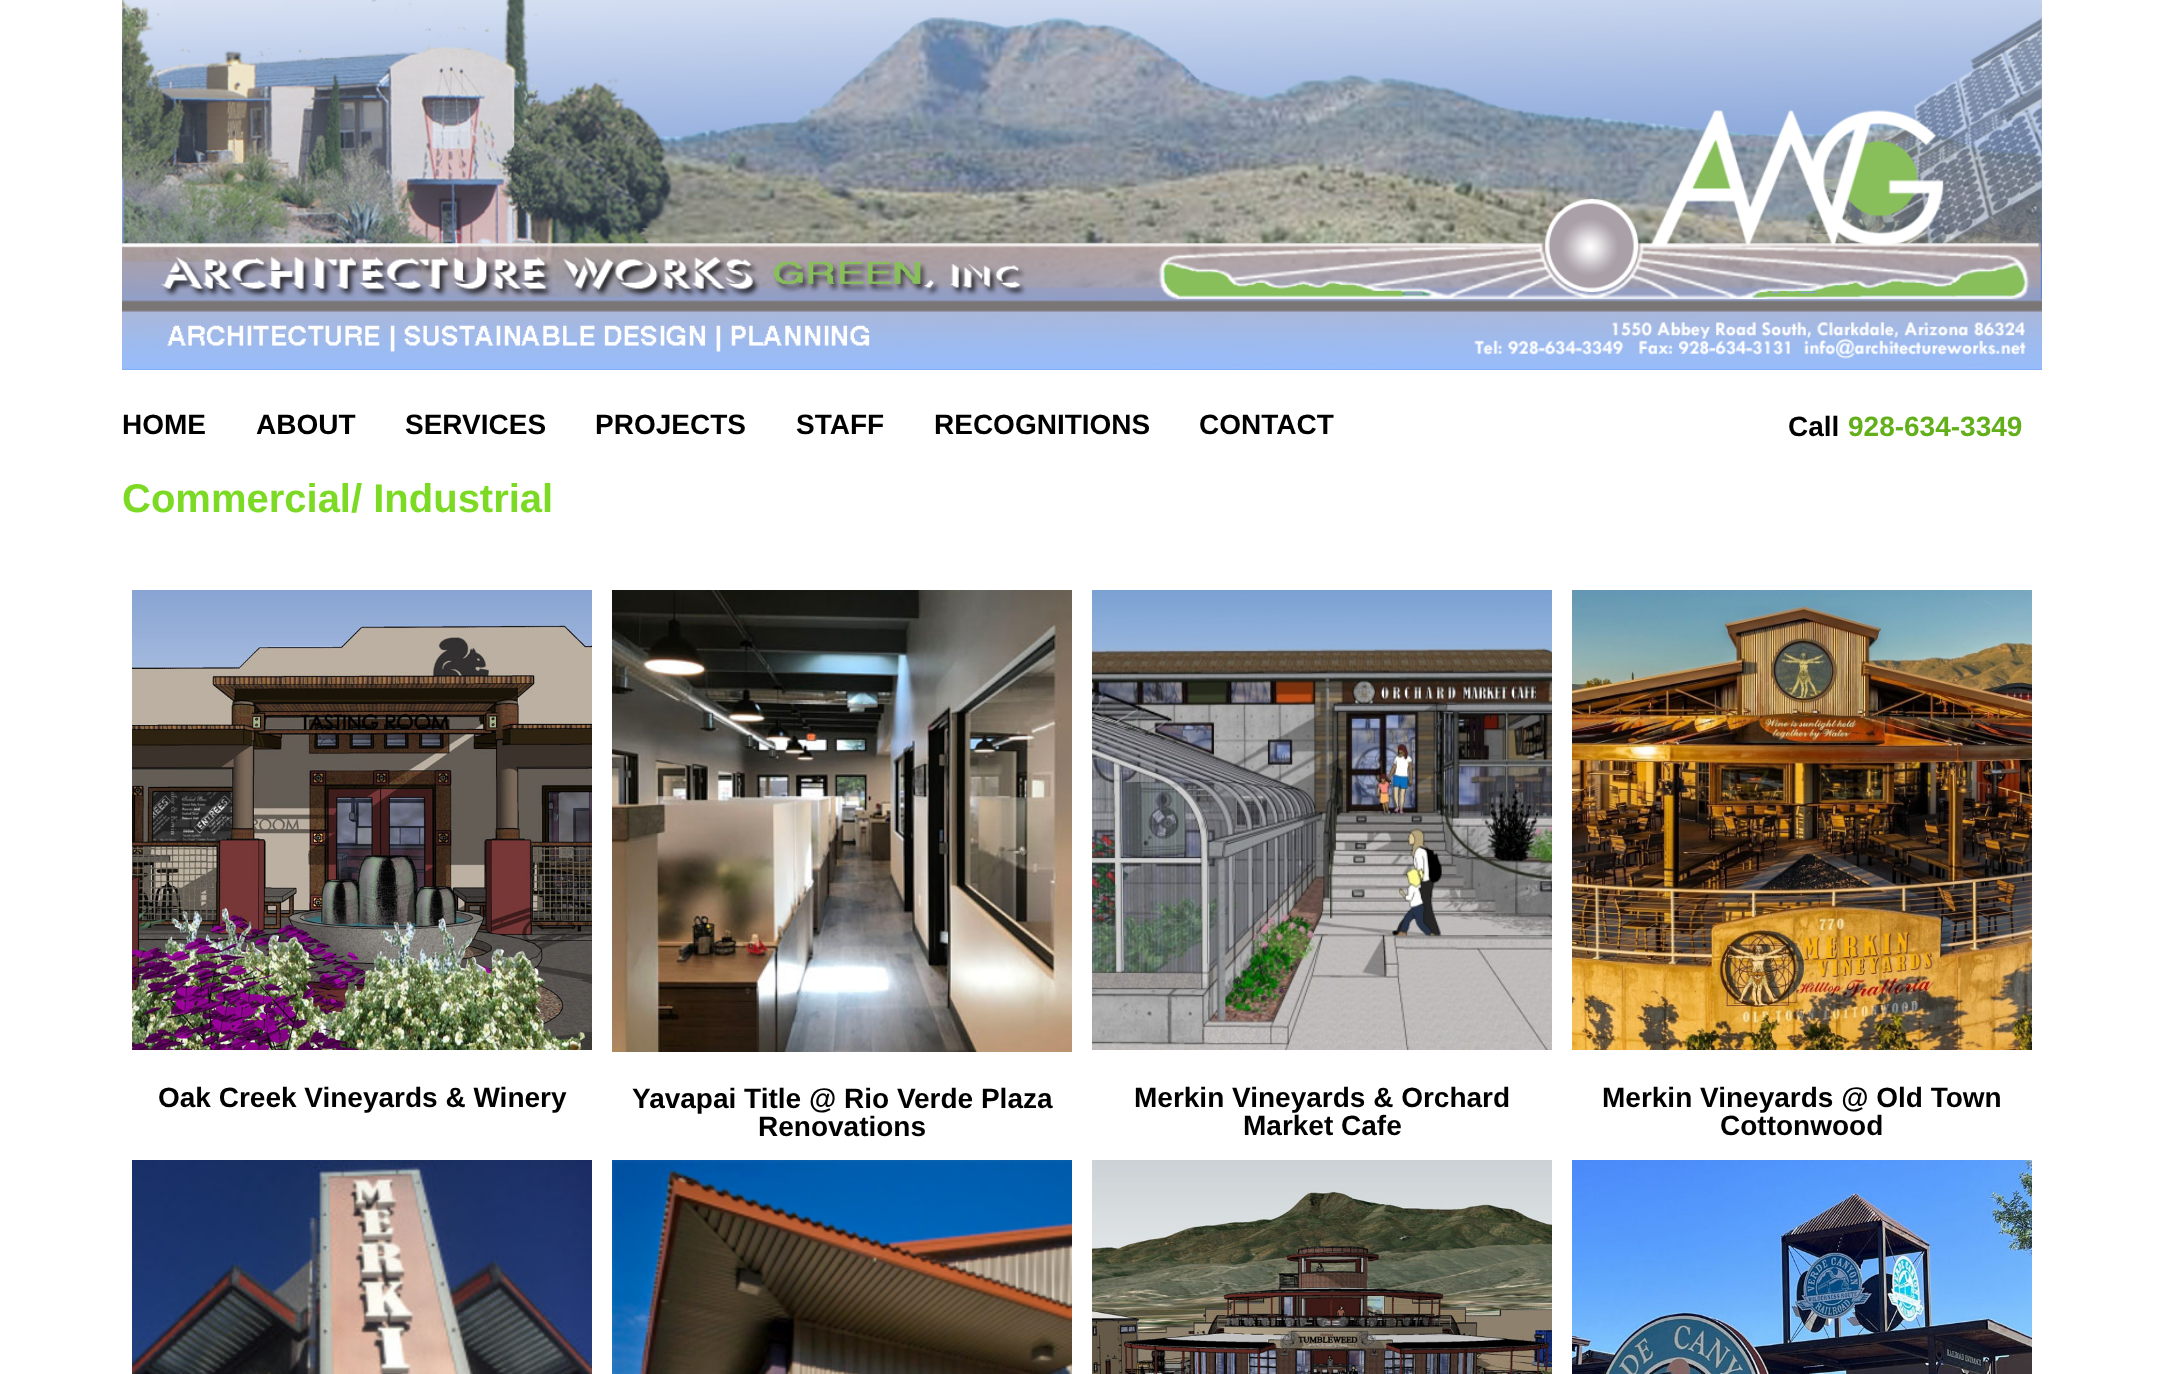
async function draw(canvas) {
	canvas.width = 2164;
	canvas.height = 1374;
	const c = canvas.getContext('2d');
	c.miterLimit = 4;
	c.fontKerning = 'normal';
	async function loadImage(src) {
		const img = new Image();
		img.src = src;
		await img.decode();
		return img;
	}

	c.fillStyle = '#fff';
	c.fillRect(0, 0, 2164, 1374);
	c.drawImage(await loadImage('img1.png'), 122, 0, 1920, 370);
	c.font = 'bold 28px Liberation Sans';
	c.fillStyle = '#000';
	for (const [text, x, y] of [
		['HOME', 122, 434],
		['ABOUT', 256, 434],
		['SERVICES', 405, 434],
		['PROJECTS', 595, 434],
		['STAFF', 796, 434],
		['RECOGNITIONS', 934, 434],
		['CONTACT', 1199, 434],
		['Call', 1788, 436],
	]) {
		c.fillText(text, x, y);
	}
	c.fillStyle = '#62af1a';
	c.fillText('928-634-3349', 1848, 436);
	c.font = 'bold 40px Liberation Sans';
	c.fillStyle = '#7cda24';
	c.fillText('Commercial/ Industrial', 122, 512);
	c.drawImage(await loadImage('img2.png'), 132, 590, 460, 460);
	c.font = 'bold 28px Liberation Sans';
	c.fillStyle = '#000';
	c.fillText('Oak Creek Vineyards & Winery', 158, 1107);
	c.drawImage(await loadImage('img3.png'), 612, 590, 460, 462);
	c.fillText('Yavapai Title @ Rio Verde Plaza', 632, 1108);
	c.fillText('Renovations', 758, 1136);
	c.drawImage(await loadImage('img4.png'), 1092, 590, 460, 460);
	c.fillText('Merkin Vineyards & Orchard', 1134, 1107);
	c.fillText('Market Cafe', 1243, 1135);
	c.drawImage(await loadImage('img5.png'), 1572, 590, 460, 460);
	c.fillText('Merkin Vineyards @ Old Town', 1602, 1107);
	c.fillText('Cottonwood', 1720, 1135);
	c.drawImage(await loadImage('img6.png'), 132, 1160, 460, 214);
	c.drawImage(await loadImage('img7.png'), 612, 1160, 460, 214);
	c.drawImage(await loadImage('img8.png'), 1092, 1160, 460, 214);
	c.drawImage(await loadImage('img9.png'), 1572, 1160, 460, 214);
}

draw(document.querySelector('canvas'));
